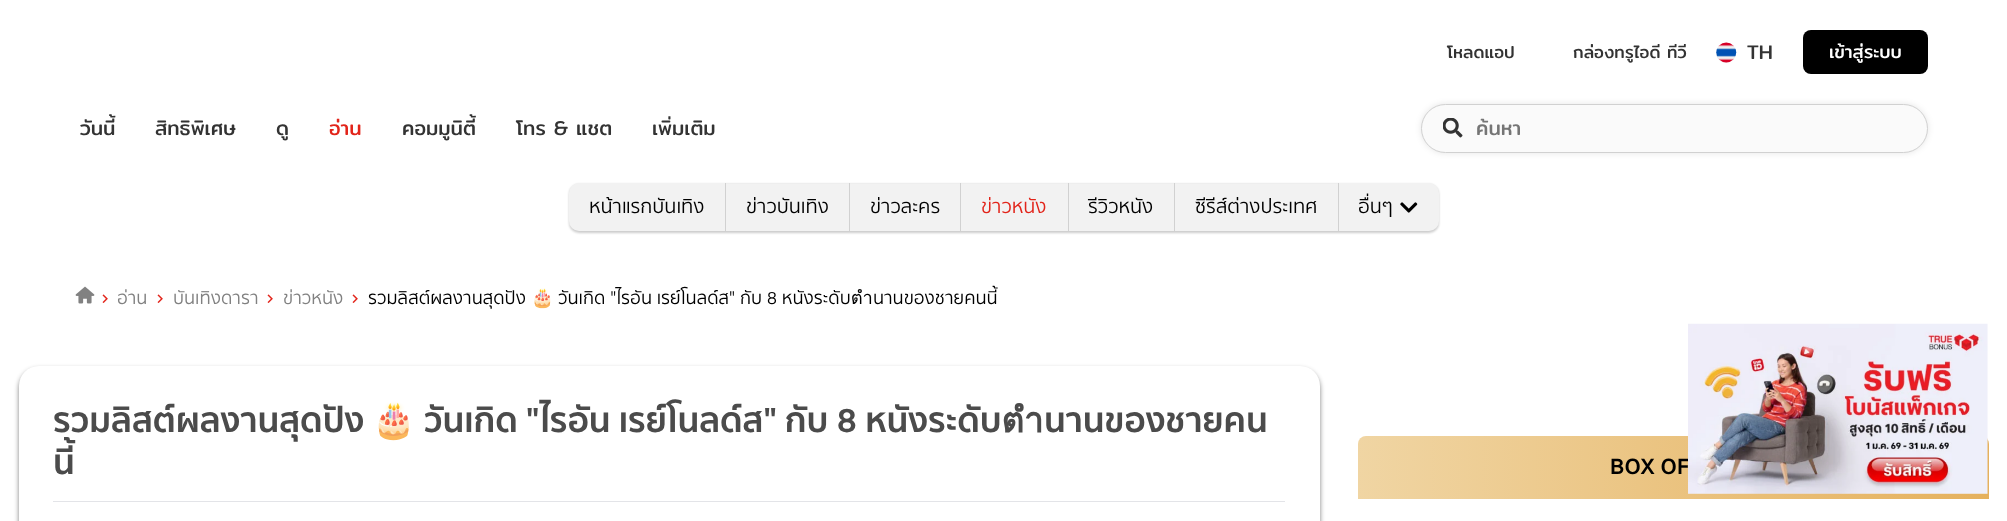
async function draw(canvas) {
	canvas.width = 2007;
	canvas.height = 521;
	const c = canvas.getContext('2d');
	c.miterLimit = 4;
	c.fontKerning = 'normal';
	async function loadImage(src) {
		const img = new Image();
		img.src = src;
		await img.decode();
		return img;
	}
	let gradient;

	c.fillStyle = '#fff';
	c.fillRect(0, 0, 2007, 521);
	c.font = '17px Mitr';
	c.fillStyle = '#333';
	c.fillText('โหลดแอป', 1447, 58);
	c.fillText('กล่องทรูไอดี ทีวี', 1573, 58);
	c.fillStyle = '#efefef';
	c.beginPath();
	c.arc(1726, 53, 10, 0, 2 * Math.PI);
	c.fill();
	c.drawImage(await loadImage('img1.png'), 1716, 42, 21, 21);
	c.font = '20px Mitr';
	c.fillStyle = '#333';
	c.fillText('TH', 1747, 59);
	c.fillStyle = '#000';
	c.beginPath();
	c.roundRect(1803, 30, 125, 44, 8);
	c.fill();
	c.font = '18px Mitr';
	c.fillStyle = '#fff';
	c.fillText('เข้าสู่ระบบ', 1829, 58);
	c.font = '20px Mitr';
	c.fillStyle = '#333';
	for (const [text, x, y] of [
		['วันนี้', 80, 135],
		['สิทธิพิเศษ', 155, 135],
		['ดู', 276, 135],
	]) {
		c.fillText(text, x, y);
	}
	c.fillStyle = '#e2241a';
	c.fillText('อ่าน', 329, 135);
	c.fillStyle = '#333';
	for (const [text, x, y] of [
		['คอมมูนิตี้', 402, 135],
		['โทร & แชต', 516, 135],
		['เพิ่มเติม', 652, 135],
	]) {
		c.fillText(text, x, y);
	}
	c.fillStyle = '#0000001a';
	c.filter = 'blur(3px)';
	c.beginPath();
	c.roundRect(1421, 104, 507, 49, 24.5);
	c.fill();
	c.filter = 'none';
	c.fillStyle = '#fafafa';
	c.beginPath();
	c.roundRect(1421.5, 104.5, 506, 48, 24);
	c.fill();
	c.strokeStyle = '#d1d1d1';
	c.stroke();
	c.drawImage(await loadImage('img2.png'), 1443, 118, 20, 20);
	c.save();
	c.beginPath();
	c.rect(1476, 113, 387, 31);
	c.clip();
	c.fillStyle = '#757575';
	c.fillText('ค้นหา', 1476, 135);
	c.restore();
	c.fillStyle = '#00000033';
	c.filter = 'blur(1px)';
	c.beginPath();
	c.roundRect(569, 184, 870, 49, 10);
	c.fill();
	c.filter = 'none';
	c.fillStyle = '#f2f2f2';
	c.beginPath();
	c.roundRect(569, 183, 156, 48, [10, 0, 0, 10]);
	c.fill();
	c.font = '20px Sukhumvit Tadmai';
	c.fillStyle = '#000';
	c.fillText('หน้าแรกบันเทิง', 589, 213);
	c.fillStyle = '#f2f2f2';
	c.fillRect(726, 184, 123, 47);
	c.fillStyle = '#d1d1d1';
	c.fillRect(725, 183, 1, 48);
	c.fillStyle = '#000';
	c.fillText('ข่าวบันเทิง', 746, 213);
	c.fillStyle = '#f2f2f2';
	c.fillRect(850, 184, 110, 47);
	c.fillStyle = '#d1d1d1';
	c.fillRect(849, 183, 1, 48);
	c.fillStyle = '#000';
	c.fillText('ข่าวละคร', 870, 213);
	c.fillStyle = '#f2f2f2';
	c.fillRect(961, 184, 107, 47);
	c.fillStyle = '#d1d1d1';
	c.fillRect(960, 183, 1, 48);
	c.fillStyle = '#e2241a';
	c.fillText('ข่าวหนัง', 981, 213);
	c.fillStyle = '#f2f2f2';
	c.fillRect(1069, 184, 105, 47);
	c.fillStyle = '#d1d1d1';
	c.fillRect(1068, 183, 1, 48);
	c.fillStyle = '#000';
	c.fillText('รีวิวหนัง', 1088, 213);
	c.fillStyle = '#f2f2f2';
	c.fillRect(1175, 184, 163, 47);
	c.fillStyle = '#d1d1d1';
	c.fillRect(1174, 183, 1, 48);
	c.fillStyle = '#000';
	c.fillText('ซีรีส์ต่างประเทศ', 1195, 213);
	c.fillStyle = '#f2f2f2';
	c.beginPath();
	c.roundRect(1338, 183, 101, 48, [0, 10, 10, 0]);
	c.fill();
	c.fillStyle = '#d1d1d1';
	c.fillRect(1338, 183, 1, 48);
	c.fillStyle = '#000';
	c.fillText('อื่นๆ', 1358, 213);
	c.drawImage(await loadImage('img3.png'), 1400, 202, 18, 11);
	c.drawImage(await loadImage('img4.png'), 75, 286, 20, 18);
	c.drawImage(await loadImage('img5.png'), 102, 294, 6, 9);
	c.font = '18.4px Sukhumvit Tadmai';
	c.fillStyle = '#818181';
	c.fillText('อ่าน', 117, 304);
	c.drawImage(await loadImage('img5.png'), 157, 294, 6, 9);
	c.fillText('บันเทิงดารา', 173, 304);
	c.drawImage(await loadImage('img5.png'), 267, 294, 6, 9);
	c.fillText('ข่าวหนัง', 283, 304);
	c.drawImage(await loadImage('img5.png'), 352, 294, 6, 9);
	c.fillStyle = '#000';
	c.fillText('รวมลิสต์ผลงานสุดปัง', 368, 304);
	c.font = '18.4px Noto Color Emoji';
	c.fillText('🎂', 531, 304);
	c.font = '18.4px Sukhumvit Tadmai';
	c.fillText('วันเกิด "ไรอัน เรย์โนลด์ส" กับ 8 หนังระดับตำนานของชายคนนี้', 558, 304);
	c.fillStyle = '#00000080';
	c.filter = 'blur(2.5px)';
	c.beginPath();
	c.roundRect(19, 369, 1301, 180, 20);
	c.fill();
	c.filter = 'none';
	c.fillStyle = '#fff';
	c.beginPath();
	c.roundRect(19, 366, 1301, 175, 20);
	c.fill();
	c.font = 'bold 35px Sukhumvit Tadmai';
	c.fillStyle = '#4b4b4b';
	c.fillText('รวมลิสต์ผลงานสุดปัง', 53, 432);
	c.font = 'bold 35px Noto Color Emoji';
	c.fillText('🎂', 372, 432);
	c.font = 'bold 35px Sukhumvit Tadmai';
	c.fillText('วันเกิด "ไรอัน เรย์โนลด์ส" กับ 8 หนังระดับตำนานของชายคน', 424, 432);
	c.fillText('นี้', 53, 474);
	c.fillStyle = '#e3e4e8';
	c.fillRect(53, 501, 1232, 1);
	gradient = c.createLinearGradient(1358, 468, 1989, 468);
	gradient.addColorStop(0, '#f0d5a3');
	gradient.addColorStop(1, '#e5b15d');
	c.fillStyle = gradient;
	c.beginPath();
	c.roundRect(1358, 436, 631, 63, [8, 8, 0, 0]);
	c.fill();
	c.letterSpacing = '0.5px';
	c.font = 'bold 22.5px Sukhumvit Tadmai';
	c.fillStyle = '#000';
	c.fillText('BOX OF', 1610, 474);
	c.drawImage(await loadImage('img6.png'), 1688, 323, 300, 171);
}

draw(document.querySelector('canvas'));
